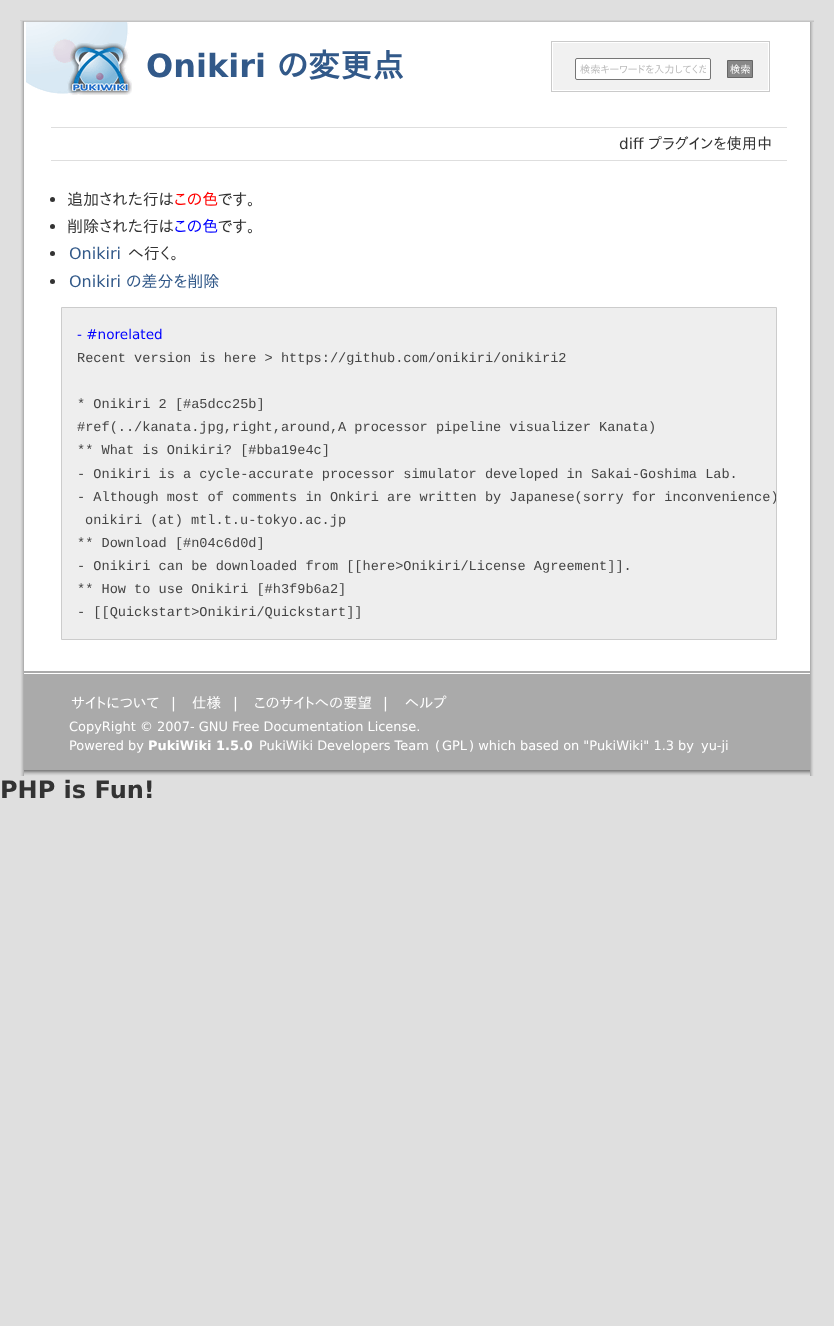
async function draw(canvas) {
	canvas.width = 834;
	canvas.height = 1326;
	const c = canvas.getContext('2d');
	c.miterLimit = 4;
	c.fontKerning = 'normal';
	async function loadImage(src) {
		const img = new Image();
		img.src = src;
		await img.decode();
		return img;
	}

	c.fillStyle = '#dfdfdf';
	c.fillRect(0, 0, 834, 1326);
	c.fillStyle = '#fff';
	c.fillRect(24, 22, 786, 649);
	c.drawImage(await loadImage('img1.png'), 810, 22, 4, 648);
	c.drawImage(await loadImage('img2.png'), 20, 21, 4, 755);
	c.fillStyle = '#d1d1d1';
	c.fillRect(20, 20, 794, 1);
	c.fillStyle = '#c3c3c3';
	c.fillRect(24, 21, 790, 1);
	c.drawImage(await loadImage('img3.png'), 26, 22, 106, 73);
	c.font = 'bold 32px DejaVu Sans';
	c.fillStyle = '#325989';
	c.fillText('Onikiri', 146, 77);
	c.font = 'bold 32px IPAPGothic';
	c.fillText('の変更点', 277, 77);
	c.fillStyle = '#f1f1f1';
	c.fillRect(553, 43, 215, 47);
	c.fillStyle = '#fff';
	c.beginPath();
	c.roundRect(575.5, 58.5, 135, 21, 1.5);
	c.fill();
	c.strokeStyle = '#767676';
	c.stroke();
	c.strokeStyle = '#cacaca';
	c.strokeRect(551.5, 41.5, 218, 50);
	c.save();
	c.beginPath();
	c.rect(580, 63, 126, 12);
	c.clip();
	c.font = '10.25px IPAPGothic';
	c.fillStyle = '#bbb';
	c.fillText('検索キーワードを入力してくだ', 580, 73);
	c.restore();
	c.fillStyle = '#888';
	c.beginPath();
	c.rect(727.5, 60.5, 25, 17);
	c.fill();
	c.strokeStyle = '#666';
	c.stroke();
	c.font = '10.25px IPAPGothic';
	c.fillStyle = '#fff';
	c.fillText('検索', 730, 73);
	c.fillStyle = '#dedede';
	c.fillRect(51, 127, 736, 1);
	c.fillRect(51, 160, 736, 1);
	c.font = '15.25px DejaVu Sans';
	c.fillStyle = '#333';
	c.fillText('diff', 619, 149);
	c.font = '15.25px IPAPGothic';
	c.fillText('プラグインを使用中', 648, 149);
	c.beginPath();
	c.arc(52.5, 199.5, 2.5, 0, 2 * Math.PI);
	c.fill();
	c.font = '16px IPAPGothic';
	c.fillText('追加された行は', 67, 205);
	c.fillStyle = '#f00';
	c.fillText('この色', 174, 205);
	c.fillStyle = '#333';
	c.fillText('です。', 218, 205);
	c.beginPath();
	c.arc(52.5, 226.5, 2.5, 0, 2 * Math.PI);
	c.fill();
	c.fillText('削除された行は', 67, 232);
	c.fillStyle = '#00f';
	c.fillText('この色', 174, 232);
	c.fillStyle = '#333';
	c.fillText('です。', 218, 232);
	c.beginPath();
	c.arc(52.5, 253.5, 2.5, 0, 2 * Math.PI);
	c.fill();
	c.font = '16px DejaVu Sans';
	c.fillStyle = '#325989';
	c.fillText('Onikiri', 69, 259);
	c.font = '16px IPAPGothic';
	c.fillStyle = '#333';
	c.fillText('へ行く。', 128, 259);
	c.beginPath();
	c.arc(52.5, 281.5, 2.5, 0, 2 * Math.PI);
	c.fill();
	c.font = '16px DejaVu Sans';
	c.fillStyle = '#325989';
	c.fillText('Onikiri', 69, 287);
	c.font = '16px IPAPGothic';
	c.fillText('の差分を削除', 126, 287);
	c.fillStyle = '#eee';
	c.beginPath();
	c.rect(61.5, 307.5, 715, 332);
	c.fill();
	c.strokeStyle = '#ccc';
	c.stroke();
	c.font = '13.6px DejaVu Sans';
	c.fillStyle = '#00f';
	c.fillText('- #norelated', 77, 339);
	c.font = '13.6px Liberation Mono';
	c.fillStyle = '#444';
	for (const [text, x, y] of [
		['Recent version is here > https://github.com/onikiri/onikiri2', 77, 362],
		['* Onikiri 2 [#a5dcc25b]', 77, 408],
		['#ref(../kanata.jpg,right,around,A processor pipeline visualizer Kanata)', 77, 431],
		['** What is Onikiri? [#bba19e4c]', 77, 454],
		['- Onikiri is a cycle-accurate processor simulator developed in Sakai-Goshima Lab.', 77, 478],
	]) {
		c.fillText(text, x, y);
	}
	c.save();
	c.beginPath();
	c.rect(62, 308, 714, 331);
	c.clip();
	c.fillText('- Although most of comments in Onkiri are written by Japanese(sorry for inconvenience)', 77, 501);
	c.restore();
	for (const [text, x, y] of [
		['onikiri (at) mtl.t.u-tokyo.ac.jp', 85, 524],
		['** Download [#n04c6d0d]', 77, 547],
		['- Onikiri can be downloaded from [[here>Onikiri/License Agreement]].', 77, 570],
		['** How to use Onikiri [#h3f9b6a2]', 77, 593],
		['- [[Quickstart>Onikiri/Quickstart]]', 77, 616],
	]) {
		c.fillText(text, x, y);
	}
	c.fillStyle = '#aaa';
	c.fillRect(24, 671, 786, 99);
	c.drawImage(await loadImage('img4.png'), 810, 670, 4, 106);
	c.drawImage(await loadImage('img5.png'), 24, 770, 786, 6);
	c.fillStyle = '#fff';
	c.fillRect(24, 673, 786, 1);
	c.font = '14.5px IPAPGothic';
	c.fillText('サイトについて', 71, 708);
	c.font = '14.5px DejaVu Sans';
	c.fillText('|', 171, 708);
	c.font = '14.5px IPAPGothic';
	c.fillText('仕様', 192, 708);
	c.font = '14.5px DejaVu Sans';
	c.fillText('|', 233, 708);
	c.font = '14.5px IPAPGothic';
	c.fillText('このサイトへの要望', 254, 708);
	c.font = '14.5px DejaVu Sans';
	c.fillText('|', 383, 708);
	c.font = '14.5px IPAPGothic';
	c.fillText('ヘルプ', 405, 708);
	c.font = '12.95px DejaVu Sans';
	c.fillText('CopyRight © 2007- GNU Free Documentation License.', 69, 731);
	c.fillText('Powered by', 69, 750);
	c.font = 'bold 12.95px DejaVu Sans';
	c.fillText('PukiWiki 1.5.0', 148, 750);
	c.font = '12.95px DejaVu Sans';
	for (const [text, x, y] of [
		['PukiWiki Developers Team', 259, 750],
		['(', 435, 750],
		['GPL', 442, 750],
		[') which based on "PukiWiki" 1.3 by', 469, 750],
		['yu-ji', 701, 750],
	]) {
		c.fillText(text, x, y);
	}
	c.font = 'bold 24px DejaVu Sans';
	c.fillStyle = '#333';
	c.fillText('PHP is Fun!', 0, 798);
}

draw(document.querySelector('canvas'));
